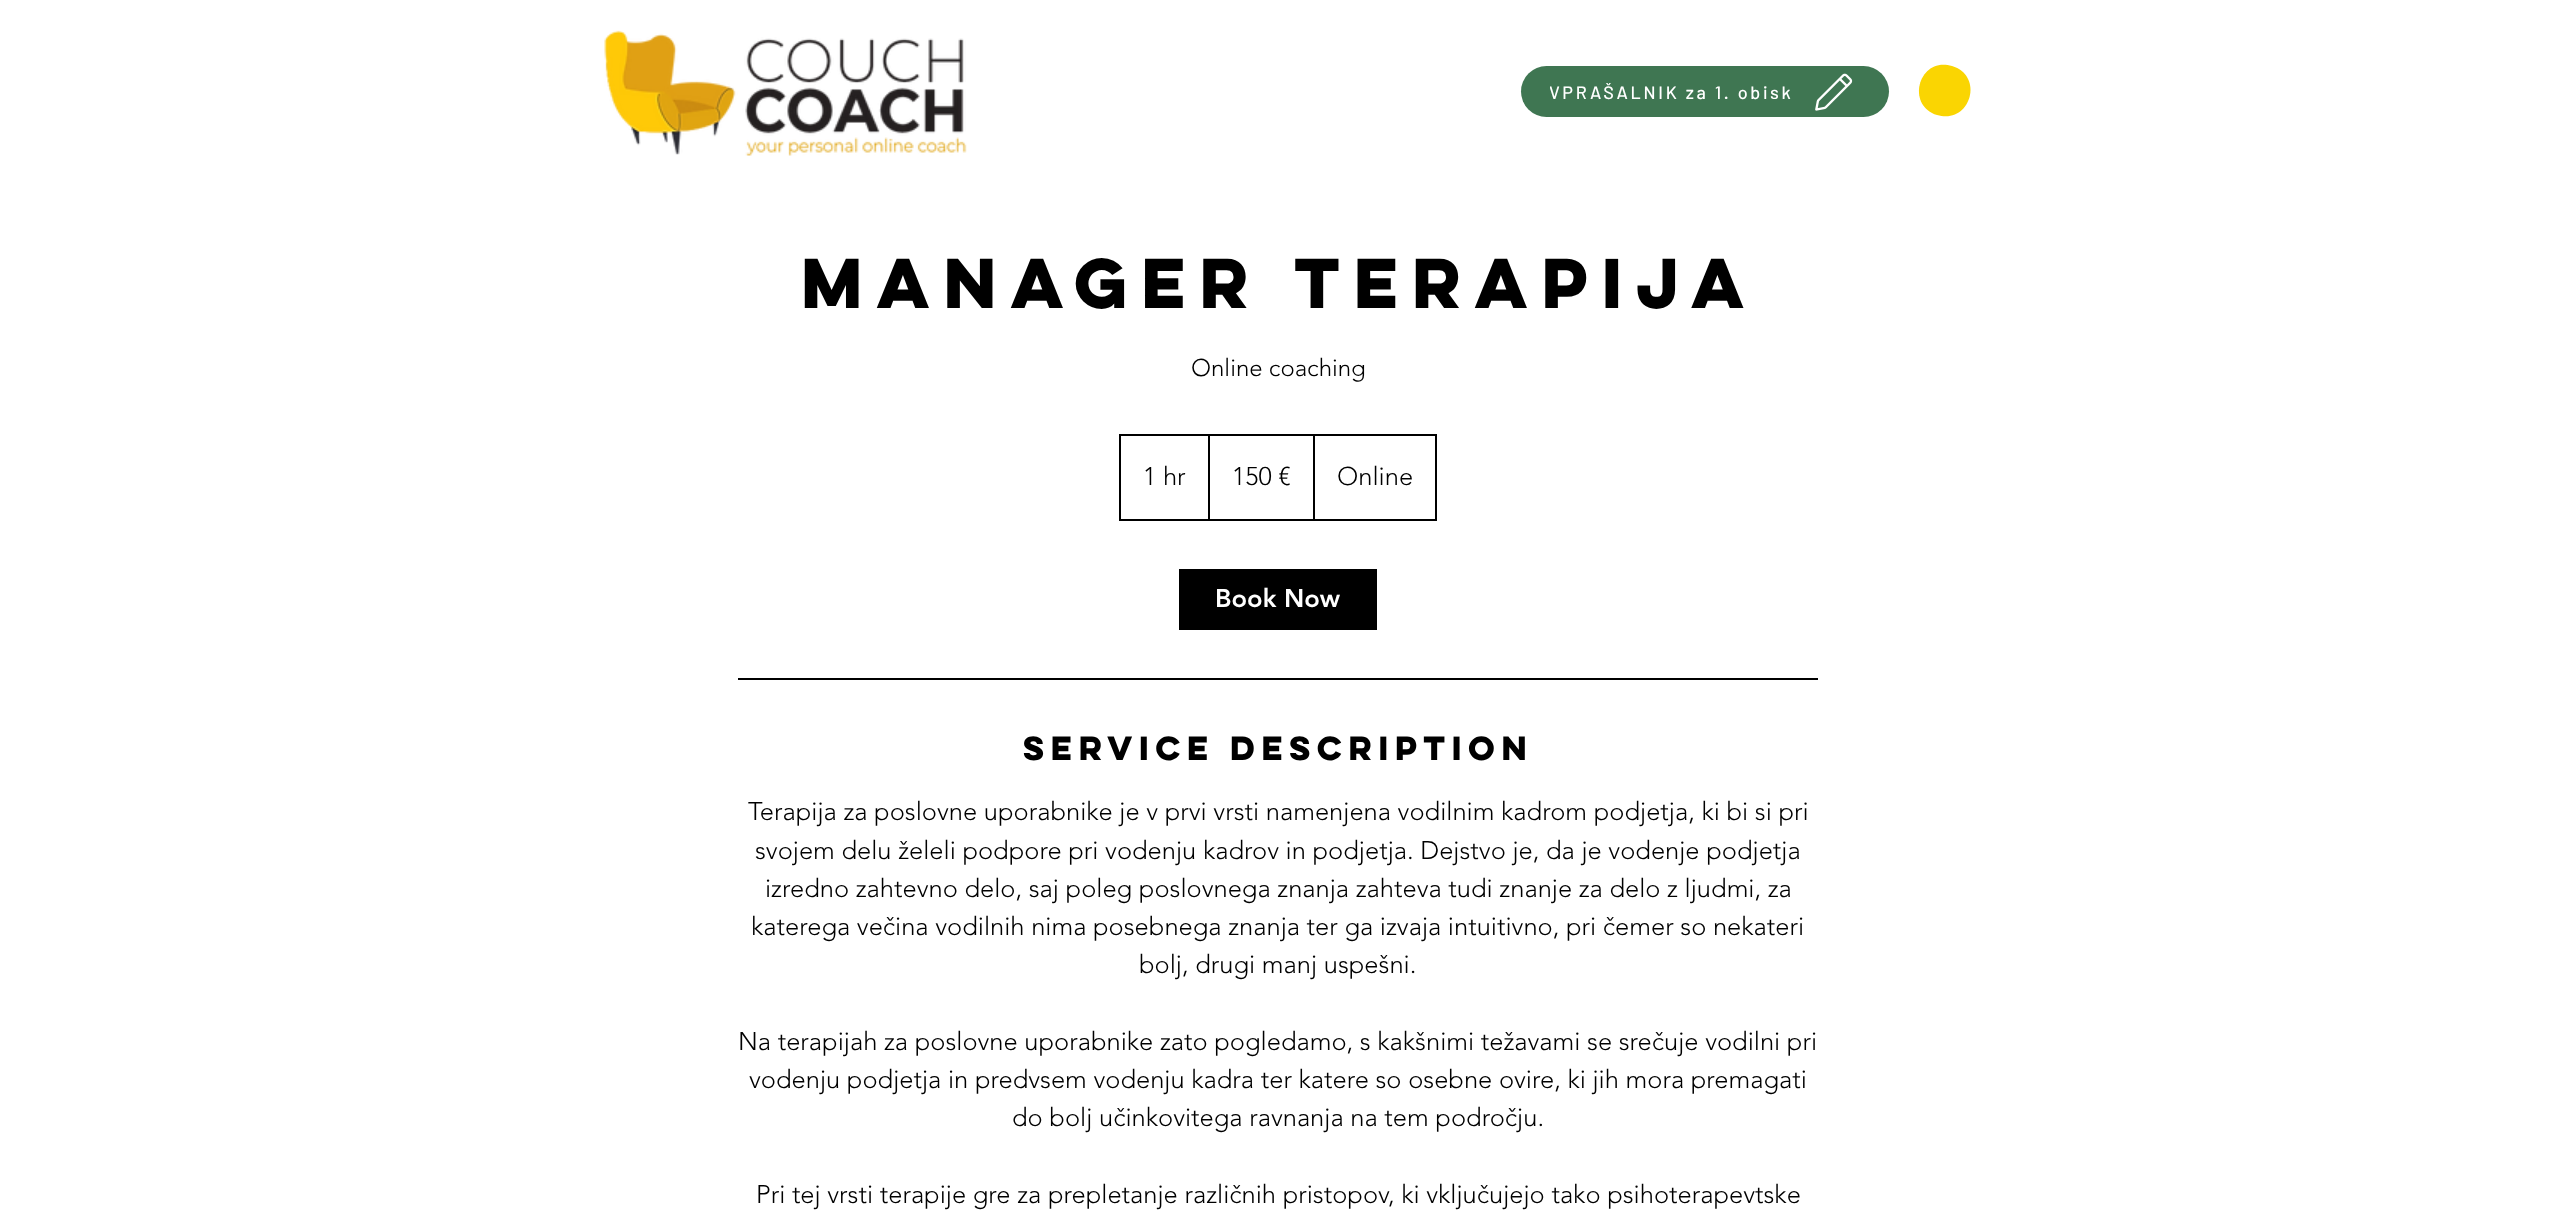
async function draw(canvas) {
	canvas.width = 2555;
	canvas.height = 1228;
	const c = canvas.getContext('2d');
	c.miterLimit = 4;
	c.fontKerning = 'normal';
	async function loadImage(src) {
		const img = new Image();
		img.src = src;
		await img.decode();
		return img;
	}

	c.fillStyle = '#fff';
	c.fillRect(0, 0, 2555, 1228);
	c.drawImage(await loadImage('img1.png'), 604, 30, 363, 126);
	c.fillStyle = '#3f7652';
	c.beginPath();
	c.roundRect(1521, 66, 368, 51, 25.5);
	c.fill();
	c.save();
	c.beginPath();
	c.rect(1550, 81, 244, 21);
	c.clip();
	c.letterSpacing = '2.7px';
	c.font = '500 18px Barlow';
	c.fillStyle = '#fff';
	c.fillText('VPRAŠALNIK za 1. obisk', 1549, 99);
	c.restore();
	c.drawImage(await loadImage('img2.png'), 1815, 73, 38, 38);
	c.fillStyle = '#fad502';
	c.beginPath();
	c.moveTo(1952, 66);
	c.bezierCurveTo(1985, 76, 1970, 125, 1937, 115);
	c.bezierCurveTo(1905, 105, 1919, 56, 1952, 66);
	c.closePath();
	c.fill();
	c.font = 'bold 63px "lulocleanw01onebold"';
	c.fillStyle = '#000';
	c.fillText('Manager terapija', 801, 308);
	c.font = '300 24px "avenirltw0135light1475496"';
	c.fillText('Online coaching', 1191, 376);
	c.strokeStyle = '#000';
	c.lineWidth = 2;
	c.strokeRect(1120, 435, 316, 85);
	c.font = '300 25.5px "avenirltw0135light1475496"';
	c.fillText('1 hr', 1143, 485);
	c.fillRect(1208, 435, 2, 84);
	c.fillText('150 €', 1232, 485);
	c.fillRect(1313, 435, 2, 84);
	c.fillText('Online', 1337, 485);
	c.fillRect(1179, 569, 198, 61);
	c.font = '900 25.5px "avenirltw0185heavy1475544"';
	c.fillStyle = '#fff';
	c.fillText('Book Now', 1215, 607);
	c.fillStyle = '#000';
	c.fillRect(738, 678, 1080, 2);
	c.font = 'bold 30px "lulocleanw01onebold"';
	c.fillText('Service Description', 1023, 760);
	c.font = '300 25.5px "avenirltw0135light1475496"';
	for (const [text, x, y] of [
		['Terapija za poslovne uporabnike je v prvi vrsti namenjena vodilnim kadrom podjetja, ki bi si pri', 748, 820],
		['svojem delu želeli podpore pri vodenju kadrov in podjetja. Dejstvo je, da je vodenje podjetja', 755, 859],
		['izredno zahtevno delo, saj poleg poslovnega znanja zahteva tudi znanje za delo z ljudmi, za', 765, 897],
		['katerega večina vodilnih nima posebnega znanja ter ga izvaja intuitivno, pri čemer so nekateri', 751, 935],
		['bolj, drugi manj uspešni.', 1139, 973],
		['Na terapijah za poslovne uporabnike zato pogledamo, s kakšnimi težavami se srečuje vodilni pri', 738, 1050],
		['vodenju podjetja in predvsem vodenju kadra ter katere so osebne ovire, ki jih mora premagati', 749, 1088],
		['do bolj učinkovitega ravnanja na tem področju.', 1012, 1126],
		['Pri tej vrsti terapije gre za prepletanje različnih pristopov, ki vključujejo tako psihoterapevtske', 756, 1203],
	]) {
		c.fillText(text, x, y);
	}
}

draw(document.querySelector('canvas'));
